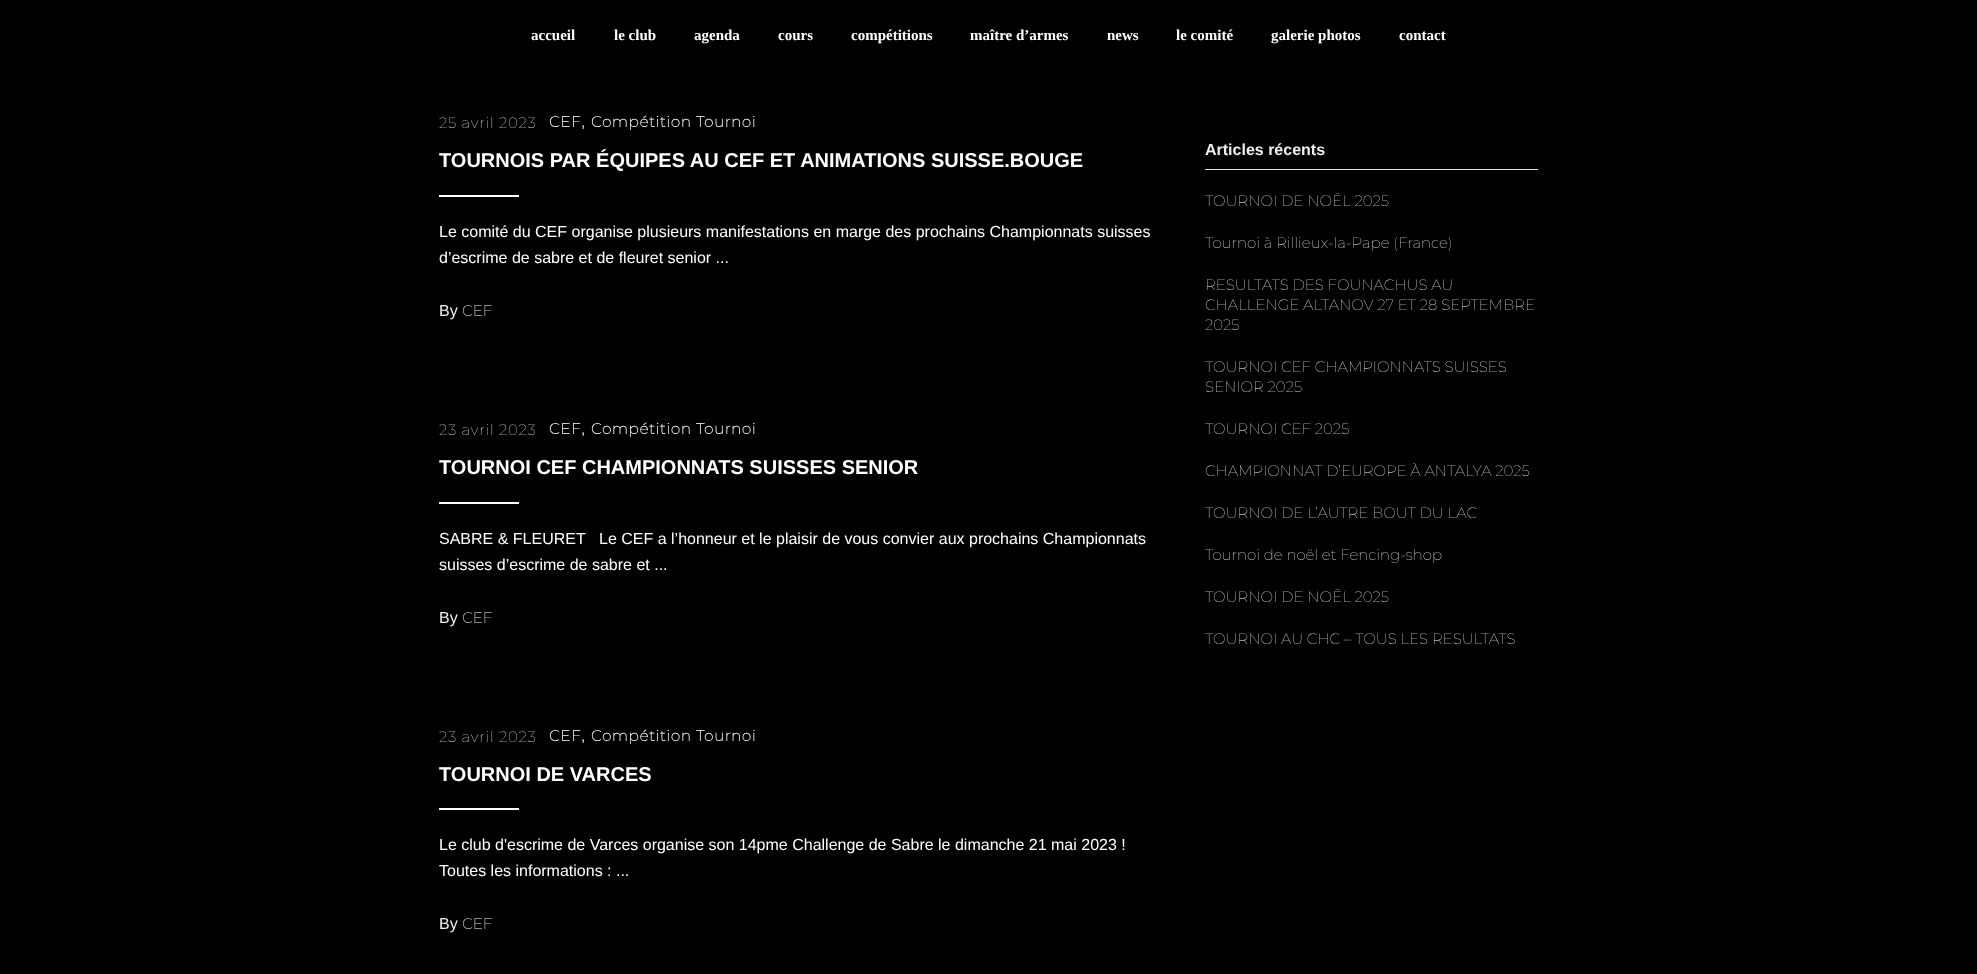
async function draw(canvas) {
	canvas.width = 1977;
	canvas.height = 974;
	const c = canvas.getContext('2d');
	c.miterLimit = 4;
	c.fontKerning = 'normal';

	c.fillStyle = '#000';
	c.fillRect(0, 0, 1977, 974);
	c.font = 'bold 15px Liberation Serif';
	c.fillStyle = '#fff';
	for (const [text, x, y] of [
		['accueil', 531, 40],
		['le club', 614, 40],
		['agenda', 694, 40],
		['cours', 778, 40],
		['compétitions', 851, 40],
		['maître d’armes', 970, 40],
		['news', 1107, 40],
		['le comité', 1176, 40],
		['galerie photos', 1271, 40],
		['contact', 1399, 40],
	]) {
		c.fillText(text, x, y);
	}
	c.letterSpacing = '0.75px';
	c.font = '100 15px Montserrat';
	c.fillText('25 avril 2023', 439, 128);
	c.font = 'bold 15px Montserrat';
	c.fillText('CEF', 549, 127);
	c.font = '15px Liberation Sans';
	c.fillStyle = '#efefef';
	c.fillText(',', 581, 127);
	c.font = 'bold 15px Montserrat';
	c.fillStyle = '#fff';
	c.fillText('Compétition Tournoi', 591, 127);
	c.letterSpacing = '0px';
	c.font = 'bold 20px Liberation Sans';
	c.fillText('TOURNOIS PAR ÉQUIPES AU CEF ET ANIMATIONS SUISSE.BOUGE', 439, 167);
	c.fillRect(439, 195, 80, 2);
	c.font = '16px Liberation Sans';
	c.fillText('Le comité du CEF organise plusieurs manifestations en marge des prochains Championnats suisses', 439, 237);
	c.fillText('d’escrime de sabre et de fleuret senior ...', 439, 263);
	c.fillStyle = '#efefef';
	c.fillText('By', 439, 316);
	c.font = 'bold 15px Montserrat';
	c.fillStyle = '#b2b2b2';
	c.fillText('CEF', 462, 316);
	c.letterSpacing = '0.75px';
	c.font = '100 15px Montserrat';
	c.fillStyle = '#fff';
	c.fillText('23 avril 2023', 439, 435);
	c.font = 'bold 15px Montserrat';
	c.fillText('CEF', 549, 434);
	c.font = '15px Liberation Sans';
	c.fillStyle = '#efefef';
	c.fillText(',', 581, 434);
	c.font = 'bold 15px Montserrat';
	c.fillStyle = '#fff';
	c.fillText('Compétition Tournoi', 591, 434);
	c.letterSpacing = '0px';
	c.font = 'bold 20px Liberation Sans';
	c.fillText('TOURNOI CEF CHAMPIONNATS SUISSES SENIOR', 439, 474);
	c.fillRect(439, 502, 80, 2);
	c.font = '16px Liberation Sans';
	for (const [text, x, y] of [
		['SABRE & FLEURET', 439, 544],
		['Le CEF a l’honneur et le plaisir de vous convier aux prochains Championnats', 599, 544],
		['suisses d’escrime de sabre et ...', 439, 570],
	]) {
		c.fillText(text, x, y);
	}
	c.fillStyle = '#efefef';
	c.fillText('By', 439, 623);
	c.font = 'bold 15px Montserrat';
	c.fillStyle = '#b2b2b2';
	c.fillText('CEF', 462, 623);
	c.letterSpacing = '0.75px';
	c.font = '100 15px Montserrat';
	c.fillStyle = '#fff';
	c.fillText('23 avril 2023', 439, 742);
	c.font = 'bold 15px Montserrat';
	c.fillText('CEF', 549, 741);
	c.font = '15px Liberation Sans';
	c.fillStyle = '#efefef';
	c.fillText(',', 581, 741);
	c.font = 'bold 15px Montserrat';
	c.fillStyle = '#fff';
	c.fillText('Compétition Tournoi', 591, 741);
	c.letterSpacing = '0px';
	c.font = 'bold 20px Liberation Sans';
	c.fillText('TOURNOI DE VARCES', 439, 781);
	c.fillRect(439, 808, 80, 2);
	c.font = '16px Liberation Sans';
	c.fillText('Le club d\'escrime de Varces organise son 14pme Challenge de Sabre le dimanche 21 mai 2023 !', 439, 850);
	c.fillText('Toutes les informations : ...', 439, 876);
	c.fillStyle = '#efefef';
	c.fillText('By', 439, 929);
	c.font = 'bold 15px Montserrat';
	c.fillStyle = '#b2b2b2';
	c.fillText('CEF', 462, 929);
	c.font = 'bold 16px Liberation Sans';
	c.fillStyle = '#efefef';
	c.fillText('Articles récents', 1205, 155);
	c.fillStyle = '#e1e1e1';
	c.fillRect(1205, 169, 333, 1);
	c.font = '100 15px Montserrat';
	c.fillStyle = '#fff';
	for (const [text, x, y] of [
		['TOURNOI DE NOËL 2025', 1205, 206],
		['Tournoi à Rillieux-la-Pape (France)', 1205, 248],
		['RESULTATS DES FOUNACHUS AU', 1205, 290],
		['CHALLENGE ALTANOV 27 ET 28 SEPTEMBRE', 1205, 310],
		['2025', 1205, 330],
		['TOURNOI CEF CHAMPIONNATS SUISSES', 1205, 372],
		['SENIOR 2025', 1205, 392],
		['TOURNOI CEF 2025', 1205, 434],
		['CHAMPIONNAT D’EUROPE À ANTALYA 2025', 1205, 476],
		['TOURNOI DE L’AUTRE BOUT DU LAC', 1205, 518],
		['Tournoi de noël et Fencing-shop', 1205, 560],
		['TOURNOI DE NOËL 2025', 1205, 602],
		['TOURNOI AU CHC – TOUS LES RESULTATS', 1205, 644],
	]) {
		c.fillText(text, x, y);
	}
}

draw(document.querySelector('canvas'));
